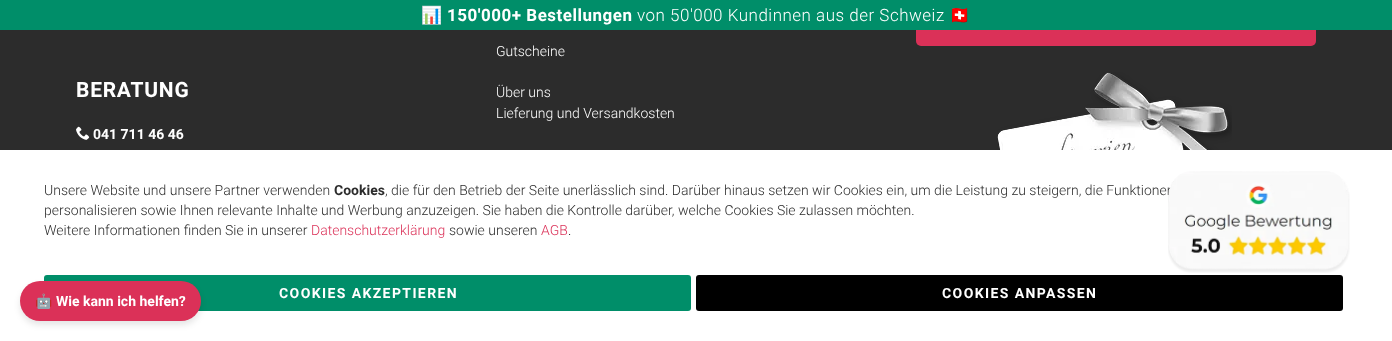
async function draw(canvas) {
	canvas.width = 1392;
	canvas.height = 341;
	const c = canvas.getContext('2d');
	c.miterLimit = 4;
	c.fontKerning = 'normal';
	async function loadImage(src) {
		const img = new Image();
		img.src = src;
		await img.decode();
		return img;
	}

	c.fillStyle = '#2c2c2c';
	c.fillRect(0, 0, 1392, 341);
	c.fillStyle = '#db3158';
	c.beginPath();
	c.roundRect(916, -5, 400, 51, 5);
	c.fill();
	c.fillStyle = '#008e69';
	c.fillRect(0, 0, 1392, 30);
	c.letterSpacing = '0.5px';
	c.font = '17px Noto Color Emoji';
	c.fillStyle = '#fff';
	c.fillText('📊', 421, 21);
	c.font = 'bold 17px Roboto';
	c.fillText('150\'000+ Bestellungen', 447, 21);
	c.font = '300 17px Roboto';
	c.fillText('von 50\'000 Kundinnen aus der Schweiz', 637, 21);
	c.font = '17px Noto Color Emoji';
	c.fillText('🇨🇭', 949, 21);
	c.letterSpacing = '0.75px';
	c.font = 'bold 21px Roboto';
	c.fillText('BERATUNG', 76, 97);
	c.drawImage(await loadImage('img1.png'), 76, 126, 14, 14);
	c.letterSpacing = '0px';
	c.font = 'bold 14px Roboto';
	c.fillText('041 711 46 46', 93, 139);
	c.font = '300 14px Roboto';
	for (const [text, x, y] of [
		['Gutscheine', 496, 56],
		['Über uns', 496, 97],
		['Lieferung und Versandkosten', 496, 118],
	]) {
		c.fillText(text, x, y);
	}
	c.drawImage(await loadImage('img2.png'), 997, 72, 235, 78);
	c.fillRect(0, 150, 1392, 191);
	c.fillStyle = '#2c2c2c';
	c.fillText(', die für den Betrieb der Seite unerlässlich sind. Darüber hinaus setzen wir Cookies ein, um die Leistung zu steigern, die Funktionen', 385, 195);
	c.drawImage(await loadImage('img3.png'), 1168, 171, 182, 102);
	c.fillText('Unsere Website und unsere Partner verwenden', 44, 195);
	c.font = 'bold 14px Roboto';
	c.fillText('Cookies', 334, 195);
	c.font = '300 14px Roboto';
	c.fillText('personalisieren sowie Ihnen relevante Inhalte und Werbung anzuzeigen. Sie haben die Kontrolle darüber, welche Cookies Sie zulassen möchten.', 44, 215);
	c.fillText('Weitere Informationen finden Sie in unserer', 44, 235);
	c.fillStyle = '#db3158';
	c.fillText('Datenschutzerklärung', 311, 235);
	c.fillStyle = '#2c2c2c';
	c.fillText('sowie unseren', 449, 235);
	c.fillStyle = '#db3158';
	c.fillText('AGB', 541, 235);
	c.fillStyle = '#2c2c2c';
	c.fillText('.', 568, 235);
	c.fillStyle = '#008e69';
	c.beginPath();
	c.roundRect(44, 275, 647, 36, 3);
	c.fill();
	c.letterSpacing = '1.4px';
	c.font = 'bold 14px Roboto';
	c.fillStyle = '#fff';
	c.fillText('COOKIES AKZEPTIEREN', 279, 298);
	c.fillStyle = '#000';
	c.beginPath();
	c.roundRect(696, 275, 647, 36, 3);
	c.fill();
	c.fillStyle = '#fff';
	c.fillText('COOKIES ANPASSEN', 942, 298);
	c.fillStyle = '#0000001a';
	c.filter = 'blur(3px)';
	c.beginPath();
	c.roundRect(20, 285, 181, 40, 20);
	c.fill();
	c.filter = 'none';
	c.fillStyle = '#db3158';
	c.beginPath();
	c.roundRect(20, 281, 181, 40, 20);
	c.fill();
	c.letterSpacing = '0px';
	c.font = 'bold 14px Noto Color Emoji';
	c.fillStyle = '#fff';
	c.fillText('🤖', 35, 306);
	c.font = 'bold 14px Roboto';
	c.fillText('Wie kann ich helfen?', 56, 306);
}

draw(document.querySelector('canvas'));
